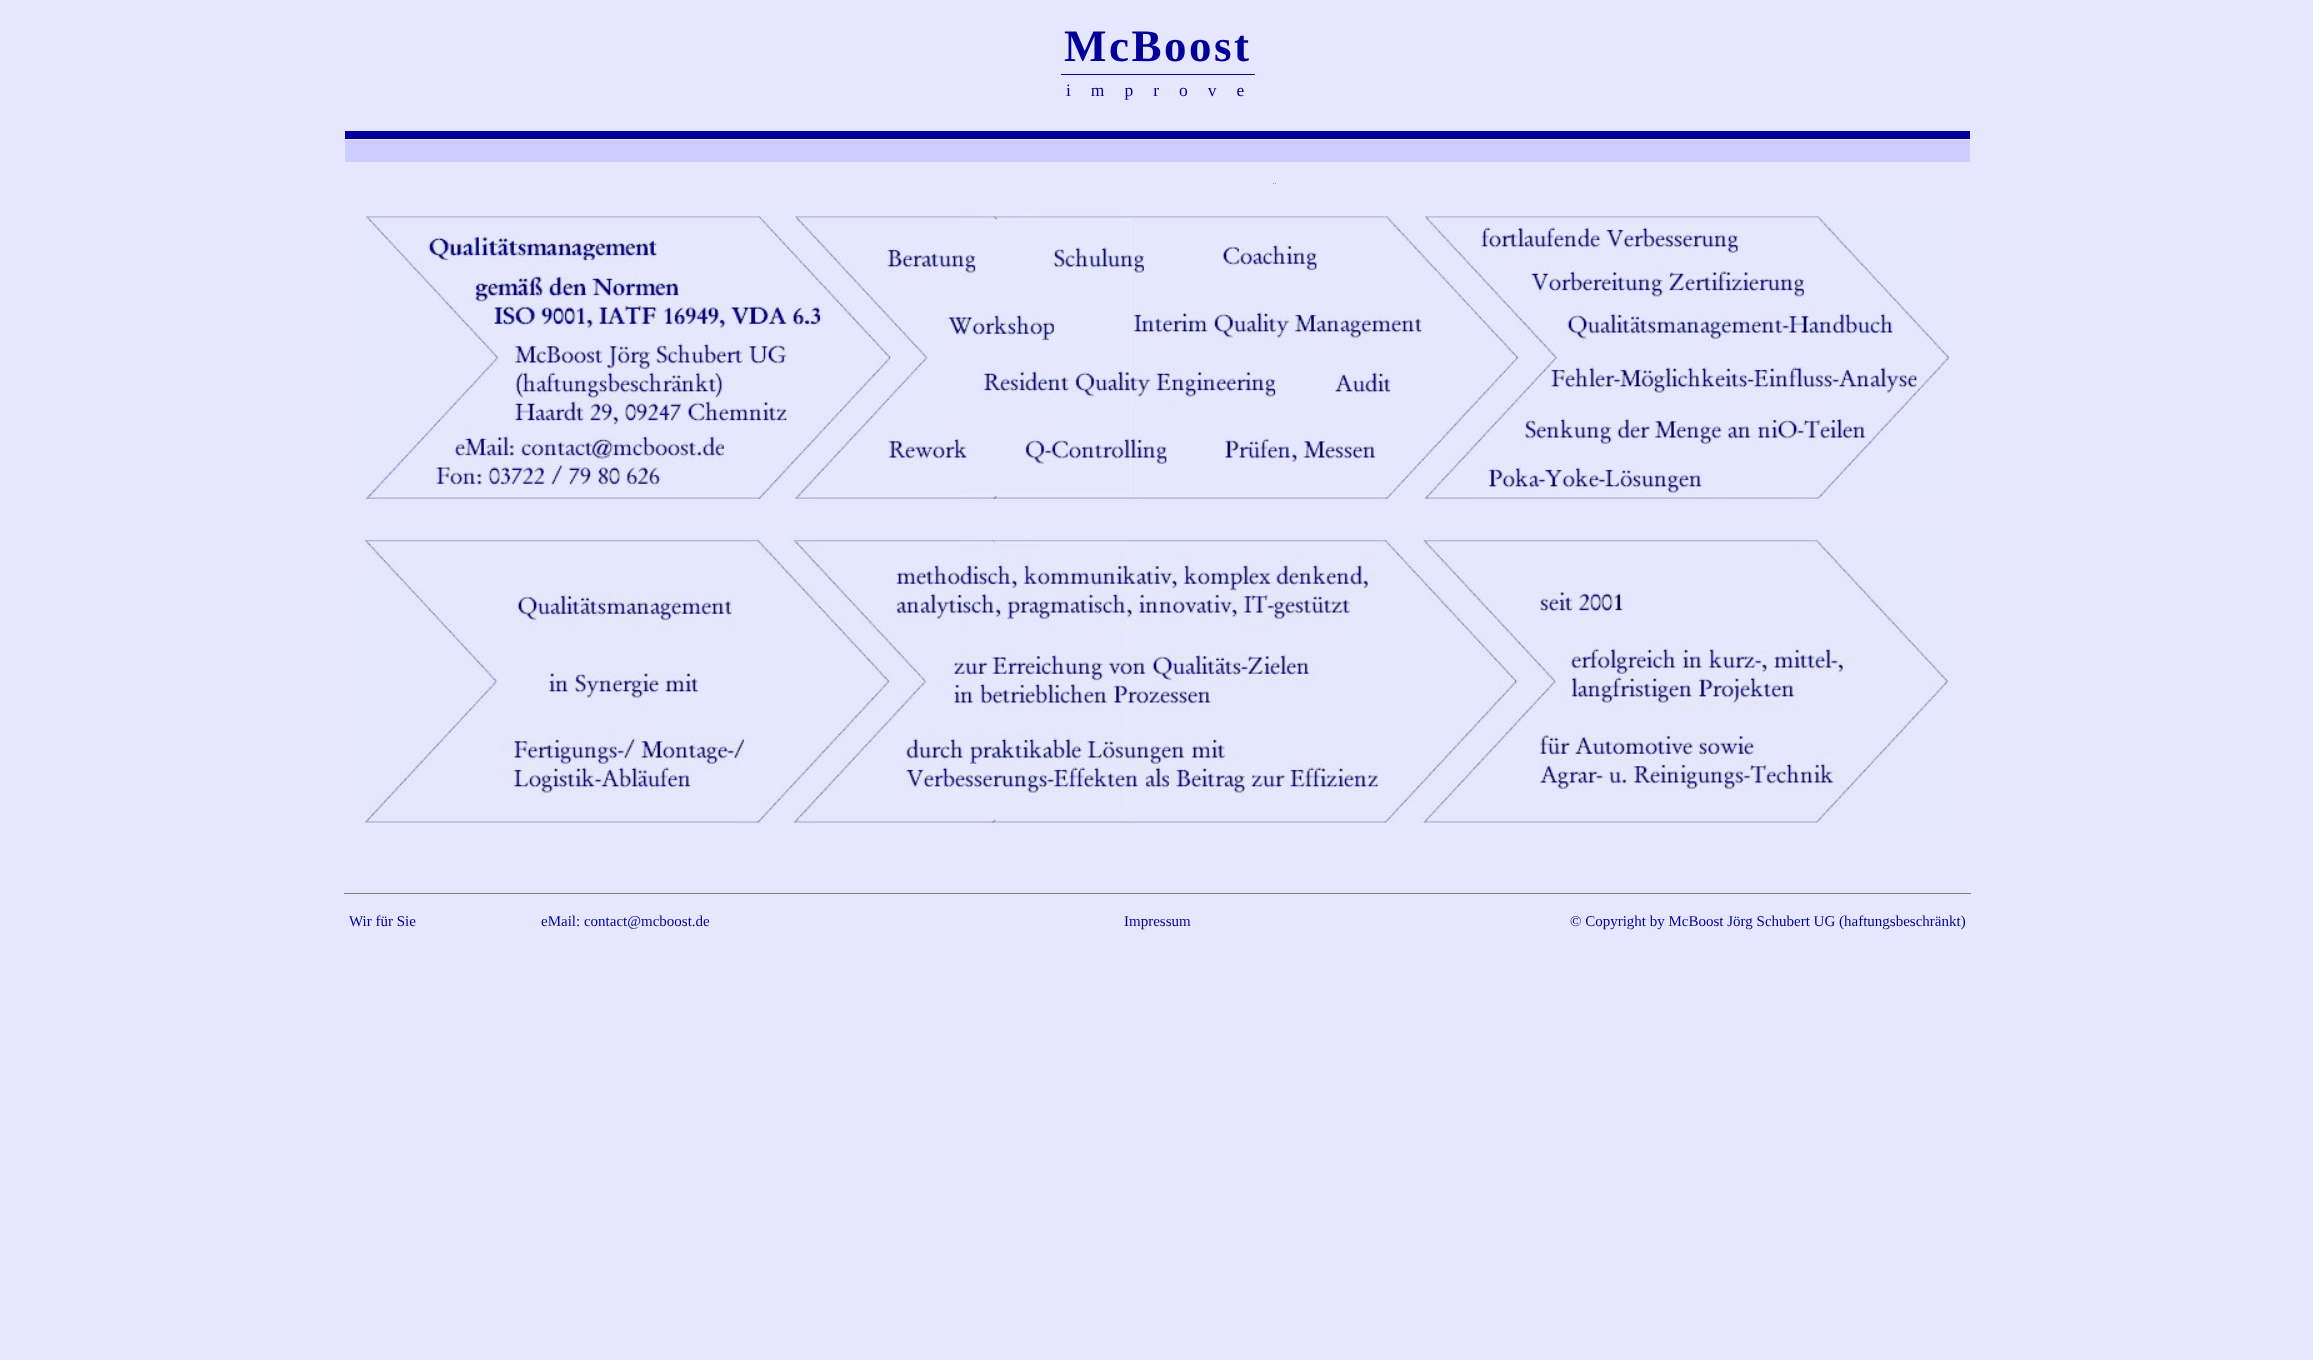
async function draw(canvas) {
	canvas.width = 2313;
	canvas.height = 1360;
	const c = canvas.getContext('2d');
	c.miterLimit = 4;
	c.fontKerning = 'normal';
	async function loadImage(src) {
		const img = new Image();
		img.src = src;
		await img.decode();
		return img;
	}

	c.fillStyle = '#e6e6ff';
	c.fillRect(0, 0, 2313, 1360);
	c.fillStyle = '#009';
	c.fillRect(1061, 74, 194, 1);
	c.letterSpacing = '2.5px';
	c.font = 'bold 45px Liberation Serif';
	c.fillText('McBoost', 1064, 61);
	c.letterSpacing = '20px';
	c.font = '17.5px Liberation Serif';
	c.fillText('improve', 1066, 96);
	for (const [x, y, w, h, color] of [
		[345, 131, 1625, 8, '#009'],
		[345, 140, 1625, 22, '#ccf'],
		[1273, 183, 3, 1, '#9f9f9f'],
		[1274, 183, 1, 1, '#eee'],
	]) {
		c.fillStyle = color;
		c.fillRect(x, y, w, h);
	}
	c.drawImage(await loadImage('img1.png'), 359, 205, 1597, 300);
	c.drawImage(await loadImage('img2.png'), 359, 531, 1595, 300);
	c.fillStyle = '#808080';
	c.fillRect(344, 893, 1627, 1);
	c.letterSpacing = '0px';
	c.font = '15px Liberation Serif';
	c.fillStyle = '#009';
	for (const [text, x, y] of [
		['Wir für Sie', 349, 926],
		['eMail: contact@mcboost.de', 541, 926],
		['Impressum', 1124, 926],
		['© Copyright by McBoost Jörg Schubert UG (haftungsbeschränkt)', 1570, 926],
	]) {
		c.fillText(text, x, y);
	}
}

draw(document.querySelector('canvas'));
